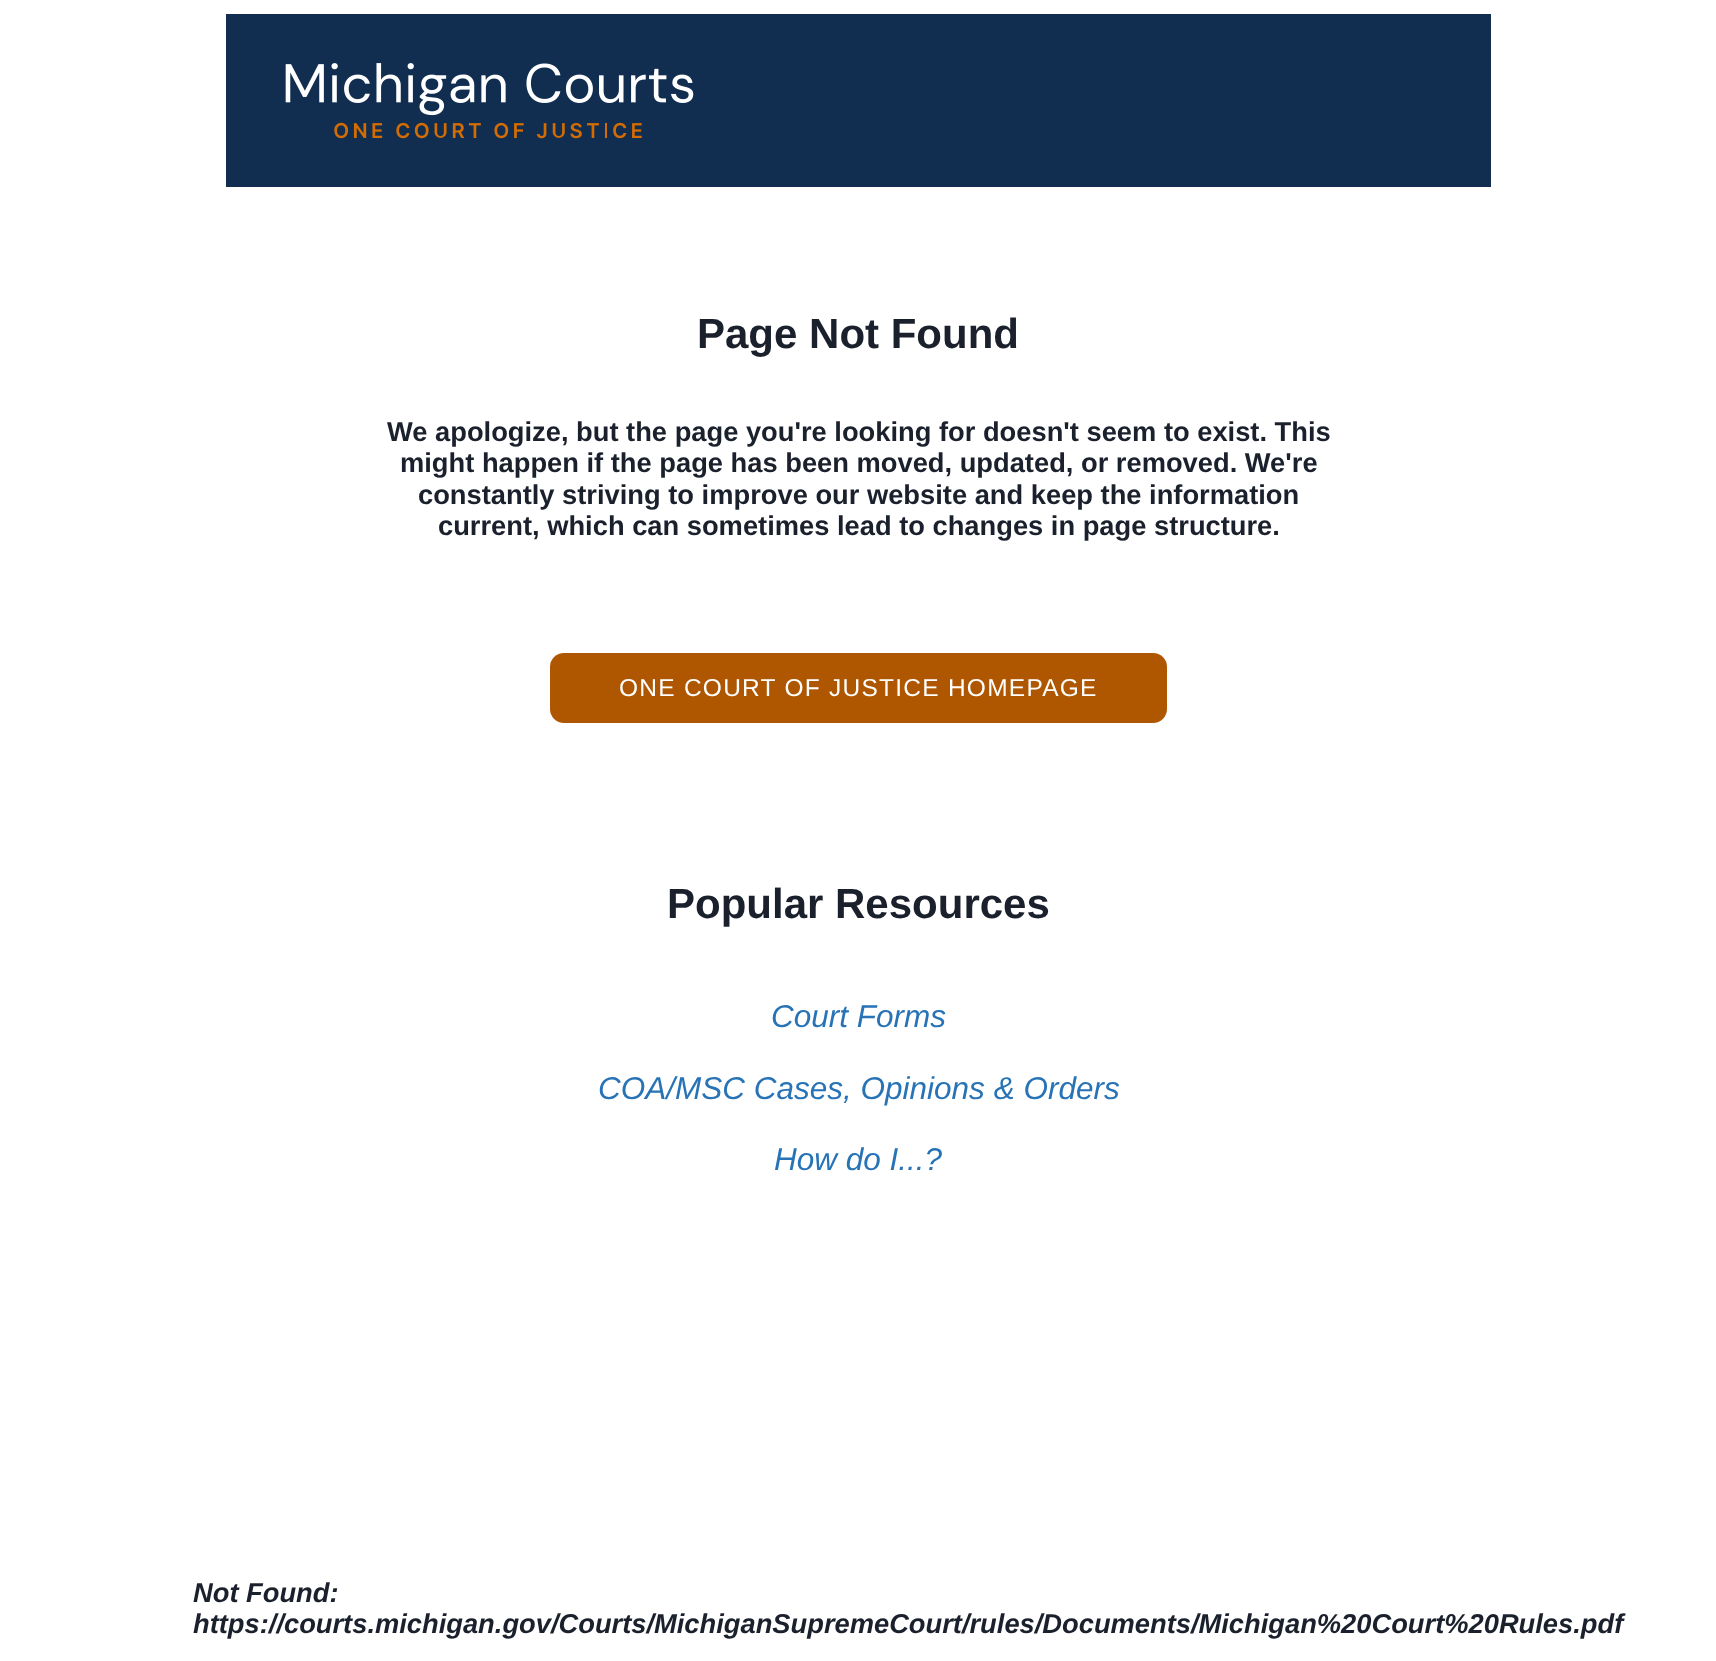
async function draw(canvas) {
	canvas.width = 1716;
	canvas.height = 1661;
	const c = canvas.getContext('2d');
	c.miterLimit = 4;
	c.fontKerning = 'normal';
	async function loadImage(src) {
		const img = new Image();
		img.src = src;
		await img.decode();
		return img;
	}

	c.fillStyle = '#fff';
	c.fillRect(0, 0, 1716, 1661);
	c.fillStyle = '#112e51';
	c.fillRect(226, 14, 1265, 173);
	c.drawImage(await loadImage('img1.png'), 285, 63, 409, 76);
	c.font = 'bold 42px Liberation Sans';
	c.fillStyle = '#1a202c';
	c.fillText('Page Not Found', 697, 348);
	c.font = 'bold 27.3px Liberation Sans';
	for (const [text, x, y] of [
		['We apologize, but the page you\'re looking for doesn\'t seem to exist. This', 387, 441],
		['might happen if the page has been moved, updated, or removed. We\'re', 400, 472],
		['constantly striving to improve our website and keep the information', 418, 504],
		['current, which can sometimes lead to changes in page structure.', 438, 535],
	]) {
		c.fillText(text, x, y);
	}
	c.fillStyle = '#af5700';
	c.beginPath();
	c.roundRect(550, 653, 617, 70, 14);
	c.fill();
	c.letterSpacing = '1.25px';
	c.font = '24.5px Liberation Sans';
	c.fillStyle = '#fff';
	c.fillText('ONE COURT OF JUSTICE HOMEPAGE', 619, 696);
	c.letterSpacing = '0px';
	c.font = 'bold 42px Liberation Sans';
	c.fillStyle = '#1a202c';
	c.fillText('Popular Resources', 667, 918);
	c.font = 'italic 31.5px Liberation Sans';
	c.fillStyle = '#2773b6';
	for (const [text, x, y] of [
		['Court Forms', 771, 1027],
		['COA/MSC Cases, Opinions & Orders', 598, 1099],
		['How do I...?', 774, 1170],
	]) {
		c.fillText(text, x, y);
	}
	c.font = 'italic bold 27.3px Liberation Sans';
	c.fillStyle = '#1a202c';
	c.fillText('Not Found:', 193, 1602);
	c.fillText('https://courts.michigan.gov/Courts/MichiganSupremeCourt/rules/Documents/Michigan%20Court%20Rules.pdf', 193, 1633);
}

draw(document.querySelector('canvas'));
